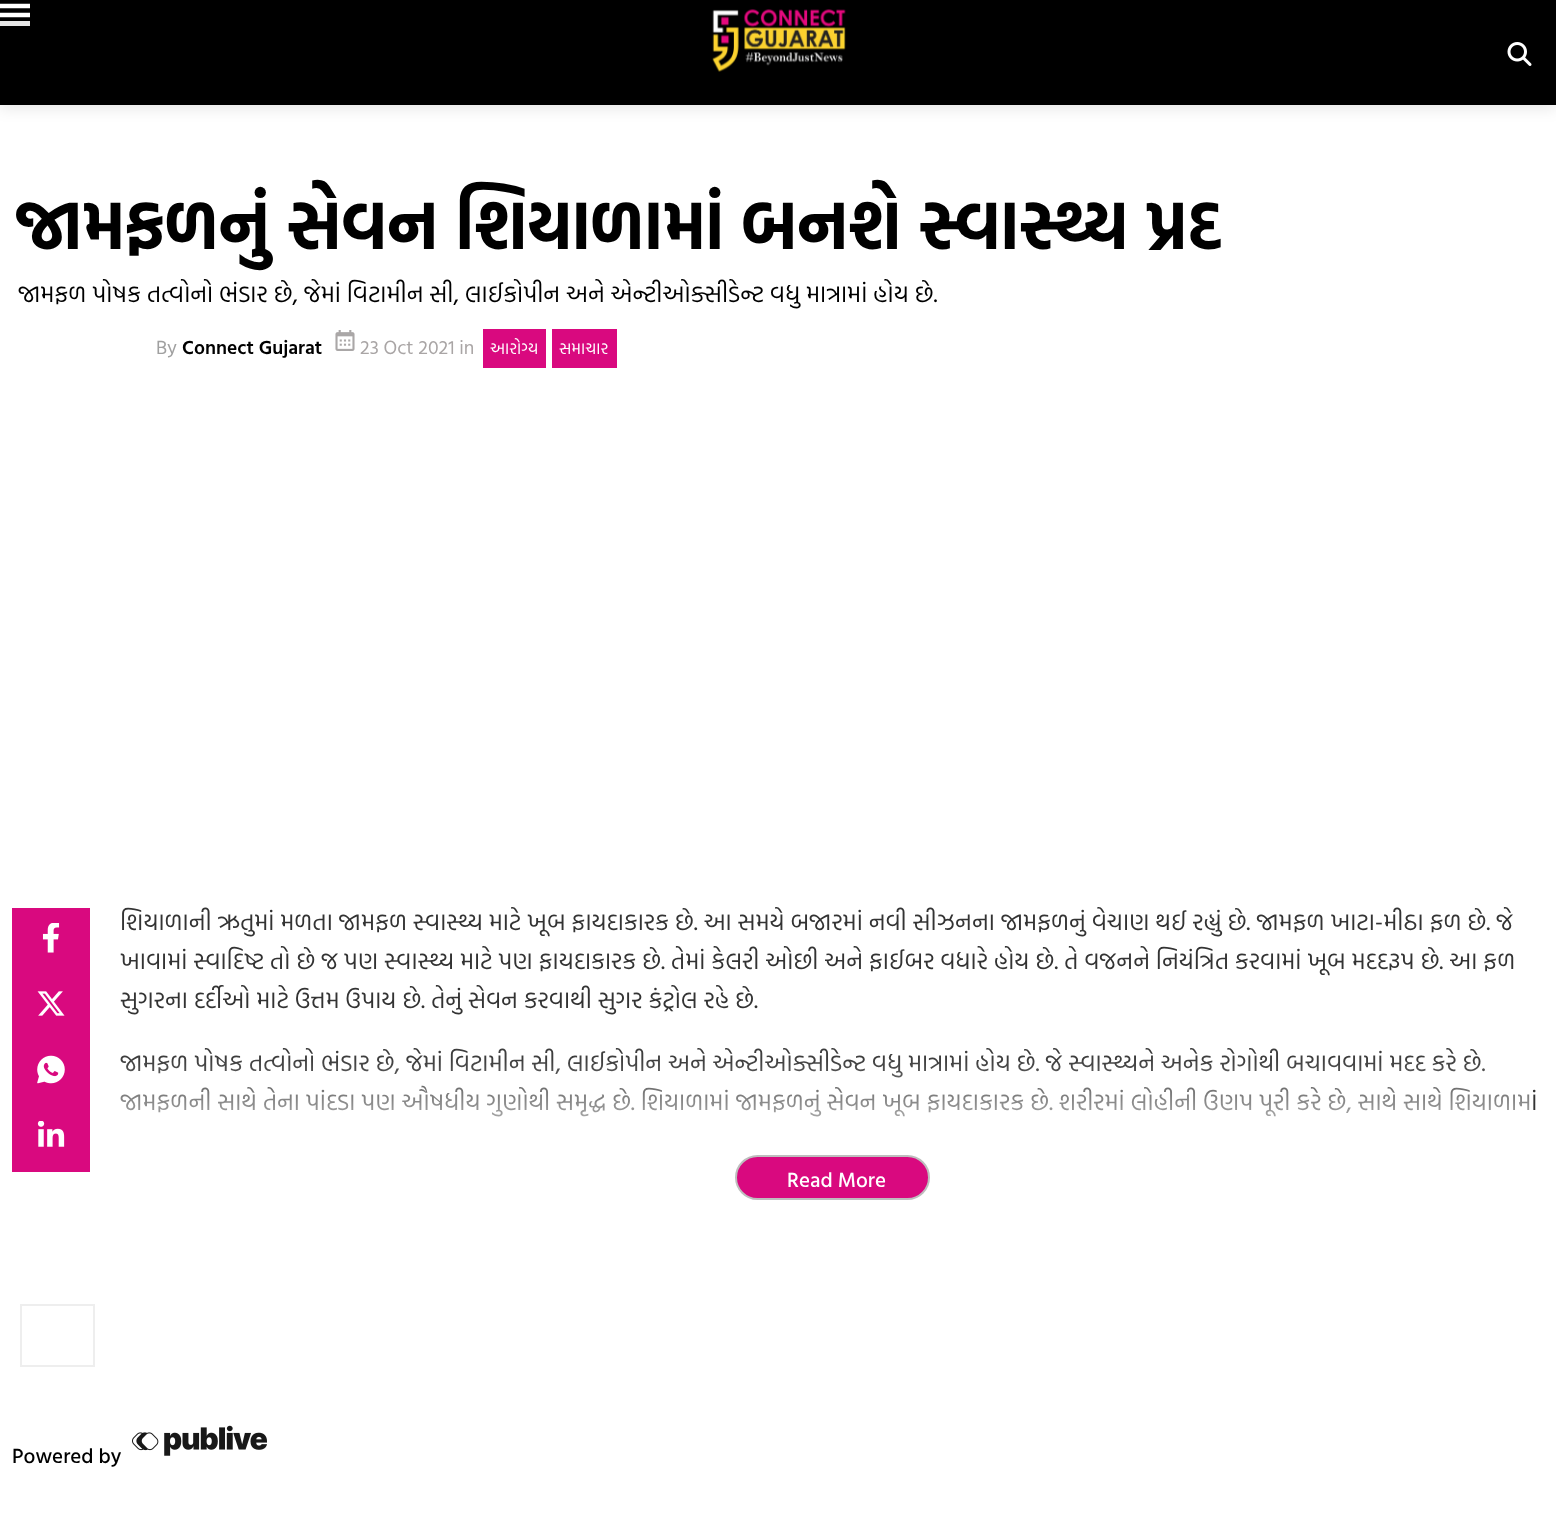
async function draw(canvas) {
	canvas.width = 1556;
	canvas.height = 1517;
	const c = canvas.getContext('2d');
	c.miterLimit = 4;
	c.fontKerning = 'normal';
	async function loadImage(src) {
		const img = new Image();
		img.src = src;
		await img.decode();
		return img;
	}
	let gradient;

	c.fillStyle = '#fff';
	c.fillRect(0, 0, 1556, 1517);
	c.fillStyle = '#0000001a';
	c.filter = 'blur(7.5px)';
	c.beginPath();
	c.rect(0, 3, 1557, 105);
	c.fill();
	c.filter = 'none';
	c.fillStyle = '#000';
	c.fillRect(0, 0, 1556, 105);
	c.beginPath();
	c.moveTo(0, 15);
	c.lineTo(30, 15);
	c.moveTo(0, 6);
	c.lineTo(30, 6);
	c.strokeStyle = '#fff';
	c.lineWidth = 4.5;
	c.stroke();
	c.drawImage(await loadImage('img1.png'), 712, 9, 134, 63);
	c.fillStyle = '#e6e6e6';
	c.fillRect(0, 21, 30, 5);
	c.drawImage(await loadImage('img2.png'), 1507, 42, 25, 24);
	c.font = 'bold 69px Hind Vadodara';
	c.fillStyle = '#000';
	c.fillText('જામફળનું સેવન શિયાળામાં બનશે સ્વાસ્થ્ય પ્રદ', 15, 249);
	c.font = '24px Hind Vadodara';
	c.fillText('જામફળ પોષક તત્વોનો ભંડાર છે, જેમાં વિટામીન સી, લાઈકોપીન અને એન્ટીઓક્સીડેન્ટ વધુ માત્રામાં હોય છે.', 18, 302);
	c.font = '19.5px Hind Vadodara';
	c.fillStyle = '#a0a0a0';
	c.fillText('By', 156, 354);
	c.font = '600 19.5px Hind Vadodara';
	c.fillStyle = '#000';
	c.fillText('Connect Gujarat', 182, 354);
	c.drawImage(await loadImage('img3.png'), 335, 330, 20, 21);
	c.font = '19.5px Hind Vadodara';
	c.fillStyle = '#a9a5a5';
	c.fillText('23 Oct 2021 in', 360, 354);
	c.fillStyle = '#d9097f';
	c.fillRect(483, 329, 63, 39);
	c.font = '16.5px Hind Vadodara';
	c.fillStyle = '#fff';
	c.fillText('આરોગ્ય', 490, 354);
	c.fillStyle = '#d9097f';
	c.fillRect(552, 329, 65, 39);
	c.fillStyle = '#fff';
	c.fillText('સમાચાર', 559, 354);
	c.fillStyle = '#d9097f';
	c.fillRect(12, 908, 78, 264);
	c.drawImage(await loadImage('img4.png'), 42, 923, 18, 30);
	c.drawImage(await loadImage('img5.png'), 37, 991, 28, 25);
	c.drawImage(await loadImage('img6.png'), 37, 1055, 28, 29);
	c.drawImage(await loadImage('img7.png'), 37, 1121, 28, 26);
	c.font = '24px Hind Vadodara';
	c.fillStyle = '#333';
	c.fillText('શિયાળાની ઋતુમાં મળતા જામફળ સ્વાસ્થ્ય માટે ખૂબ ફાયદાકારક છે. આ સમયે બજારમાં નવી સીઝનના જામફળનું વેચાણ થઈ રહ્યું છે. જામફળ ખાટા-મીઠા ફળ છે. જે', 120, 930);
	c.fillText('ખાવામાં સ્વાદિષ્ટ તો છે જ પણ સ્વાસ્થ્ય માટે પણ ફાયદાકારક છે. તેમાં કેલરી ઓછી અને ફાઈબર વધારે હોય છે. તે વજનને નિયંત્રિત કરવામાં ખૂબ મદદરૂપ છે. આ ફળ', 120, 969);
	c.save();
	c.beginPath();
	c.rect(120, 878, 1425, 375);
	c.clip();
	c.fillText('સુગરના દર્દીઓ માટે ઉત્તમ ઉપાય છે. તેનું સેવન કરવાથી સુગર કંટ્રોલ રહે છે.', 120, 1008);
	c.restore();
	c.fillText('જામફળ પોષક તત્વોનો ભંડાર છે, જેમાં વિટામીન સી, લાઈકોપીન અને એન્ટીઓક્સીડેન્ટ વધુ માત્રામાં હોય છે. જે સ્વાસ્થ્યને અનેક રોગોથી બચાવવામાં મદદ કરે છે.', 120, 1071);
	c.fillText('જામફળની સાથે તેના પાંદડા પણ ઔષધીય ગુણોથી સમૃદ્ધ છે. શિયાળામાં જામફળનું સેવન ખૂબ ફાયદાકારક છે. શરીરમાં લોહીની ઉણપ પૂરી કરે છે, સાથે સાથે શિયાળામાં', 120, 1110);
	gradient = c.createLinearGradient(833, 1038, 833, 1253);
	gradient.addColorStop(0.1, '#ffffff0d');
	gradient.addColorStop(0.6, '#fff');
	gradient.addColorStop(1, '#fff');
	c.fillStyle = gradient;
	c.fillRect(120, 1048, 1410, 69);
	c.fillStyle = '#d9097f';
	c.beginPath();
	c.roundRect(736, 1156, 193, 43, 21.5);
	c.fill();
	c.strokeStyle = '#bebebe';
	c.lineWidth = 2;
	c.stroke();
	c.font = '500 21px Hind Vadodara';
	c.fillStyle = '#fff';
	c.fillText('Read More', 787, 1187);
	c.strokeStyle = '#eee';
	c.strokeRect(21, 1305, 73, 61);
	c.fillStyle = '#000';
	c.fillText('Powered by', 12, 1463);
	c.drawImage(await loadImage('img8.png'), 132, 1425, 135, 31);
}

draw(document.querySelector('canvas'));
